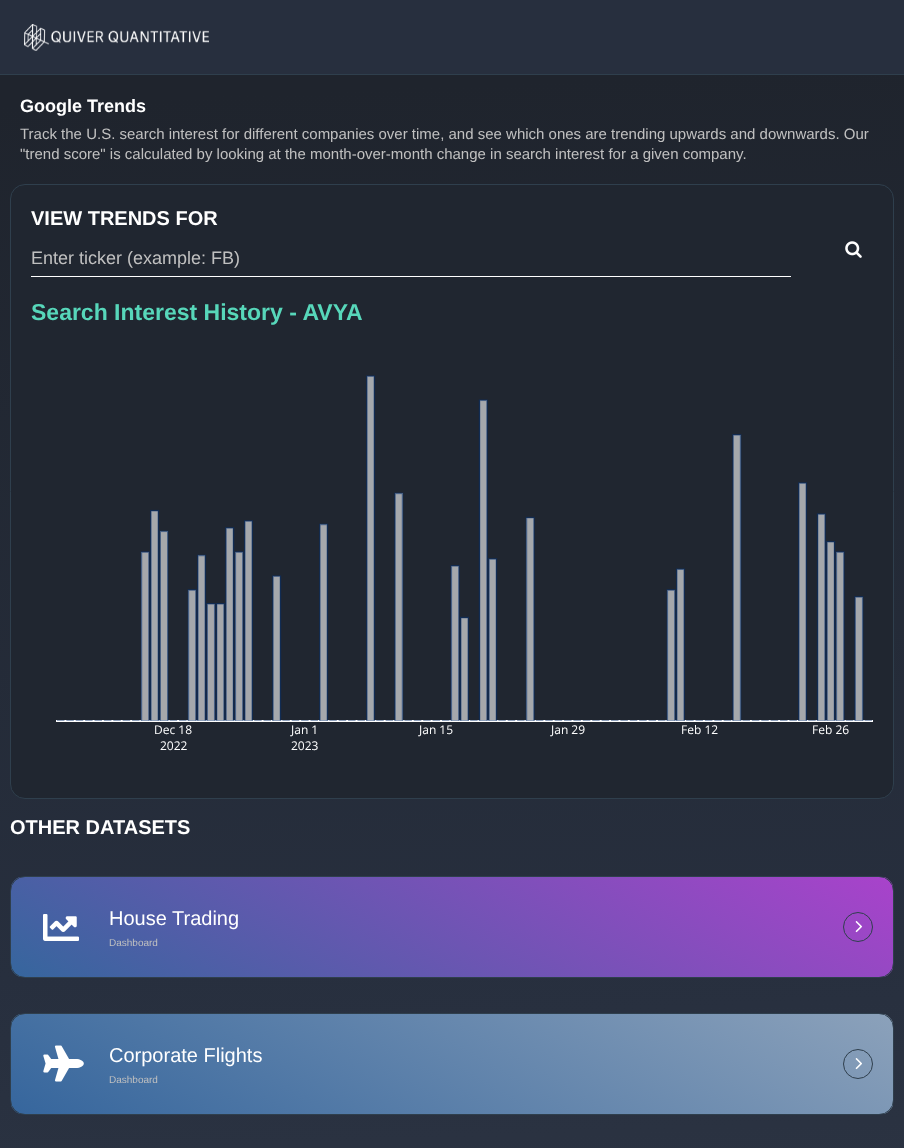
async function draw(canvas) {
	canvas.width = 904;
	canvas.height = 1148;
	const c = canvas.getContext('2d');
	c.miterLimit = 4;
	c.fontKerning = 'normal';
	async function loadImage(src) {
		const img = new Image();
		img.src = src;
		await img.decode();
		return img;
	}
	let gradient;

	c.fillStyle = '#fff';
	c.fillRect(0, 0, 904, 1148);
	c.fillStyle = '#272f3e';
	c.fillRect(0, 0, 904, 74);
	c.drawImage(await loadImage('img1.png'), 24, 24, 185, 27);
	c.fillStyle = '#2f3f4d';
	c.fillRect(0, 74, 904, 1);
	gradient = c.createLinearGradient(427, 56, 495, 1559);
	gradient.addColorStop(0.02, '#1f242d');
	gradient.addColorStop(0.6, '#272f3e');
	gradient.addColorStop(1, '#313948');
	c.fillStyle = gradient;
	c.fillRect(0, 75, 904, 1073);
	c.font = 'bold 18px Liberation Sans';
	c.fillStyle = '#fff';
	c.fillText('Google Trends', 20, 112);
	c.font = '15px Liberation Sans';
	c.fillStyle = '#c0c0c0';
	c.fillText('Track the U.S. search interest for different companies over time, and see which ones are trending upwards and downwards. Our', 20, 139);
	c.fillText('"trend score" is calculated by looking at the month-over-month change in search interest for a given company.', 20, 159);
	c.fillStyle = '#202630';
	c.beginPath();
	c.roundRect(10.5, 184.5, 883, 614, 14.5);
	c.fill();
	c.strokeStyle = '#2f3f4d';
	c.stroke();
	c.font = 'bold 20px Liberation Sans';
	c.fillStyle = '#fff';
	c.fillText('VIEW TRENDS FOR', 31, 225);
	c.fillRect(31, 276, 760, 1);
	c.font = '18px Liberation Sans';
	c.fillStyle = '#c0c0c0';
	c.fillText('Enter ticker (example: FB)', 31, 264);
	c.drawImage(await loadImage('img2.png'), 845, 241, 17, 17);
	c.font = 'bold 23px Liberation Sans';
	c.fillStyle = '#57d7ba';
	c.fillText('Search Interest History - AVYA', 31, 320);
	c.drawImage(await loadImage('img3.png'), 56, 375, 817, 347);
	c.font = '12px Open Sans';
	c.fillStyle = '#fff';
	for (const [text, x, y] of [
		['Dec 18', 154, 734],
		['Jan 1', 291, 734],
		['Jan 15', 419, 734],
		['Jan 29', 551, 734],
		['Feb 12', 681, 734],
		['Feb 26', 812, 734],
		['2022', 160, 750],
		['2023', 291, 750],
	]) {
		c.fillText(text, x, y);
	}
	c.font = 'bold 20px Liberation Sans';
	c.fillText('OTHER DATASETS', 10, 834);
	c.save();
	c.beginPath();
	c.roundRect(10, 876, 884, 102, 15);
	c.clip();
	gradient = c.createLinearGradient(320, 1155, 647, 589);
	gradient.addColorStop(0, '#36669d');
	gradient.addColorStop(1, '#c43ad6');
	c.fillStyle = gradient;
	c.fillRect(11, 877, 882, 100);
	c.restore();
	c.beginPath();
	c.roundRect(10.5, 876.5, 883, 101, 14.5);
	c.stroke();
	c.drawImage(await loadImage('img4.png'), 43, 914, 36, 27);
	c.font = '20px Liberation Sans';
	c.fillText('House Trading', 109, 925);
	c.font = '10px Liberation Sans';
	c.fillStyle = '#c0c0c0';
	c.fillText('Dashboard', 109, 946);
	c.beginPath();
	c.arc(858, 927, 14.5, 0, 2 * Math.PI);
	c.stroke();
	c.drawImage(await loadImage('img5.png'), 855, 921, 8, 12);
	c.save();
	c.beginPath();
	c.roundRect(10, 1013, 884, 102, 15);
	c.clip();
	gradient = c.createLinearGradient(320, 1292, 805, 452);
	gradient.addColorStop(0, '#36669d');
	gradient.addColorStop(1, '#d3d3d3');
	c.fillStyle = gradient;
	c.fillRect(11, 1014, 882, 100);
	c.restore();
	c.beginPath();
	c.roundRect(10.5, 1013.5, 883, 101, 14.5);
	c.stroke();
	c.drawImage(await loadImage('img6.png'), 43, 1045, 41, 37);
	c.font = '20px Liberation Sans';
	c.fillStyle = '#fff';
	c.fillText('Corporate Flights', 109, 1062);
	c.font = '10px Liberation Sans';
	c.fillStyle = '#c0c0c0';
	c.fillText('Dashboard', 109, 1083);
	c.beginPath();
	c.arc(858, 1064, 14.5, 0, 2 * Math.PI);
	c.stroke();
	c.drawImage(await loadImage('img7.png'), 855, 1058, 7, 12);
}

draw(document.querySelector('canvas'));
